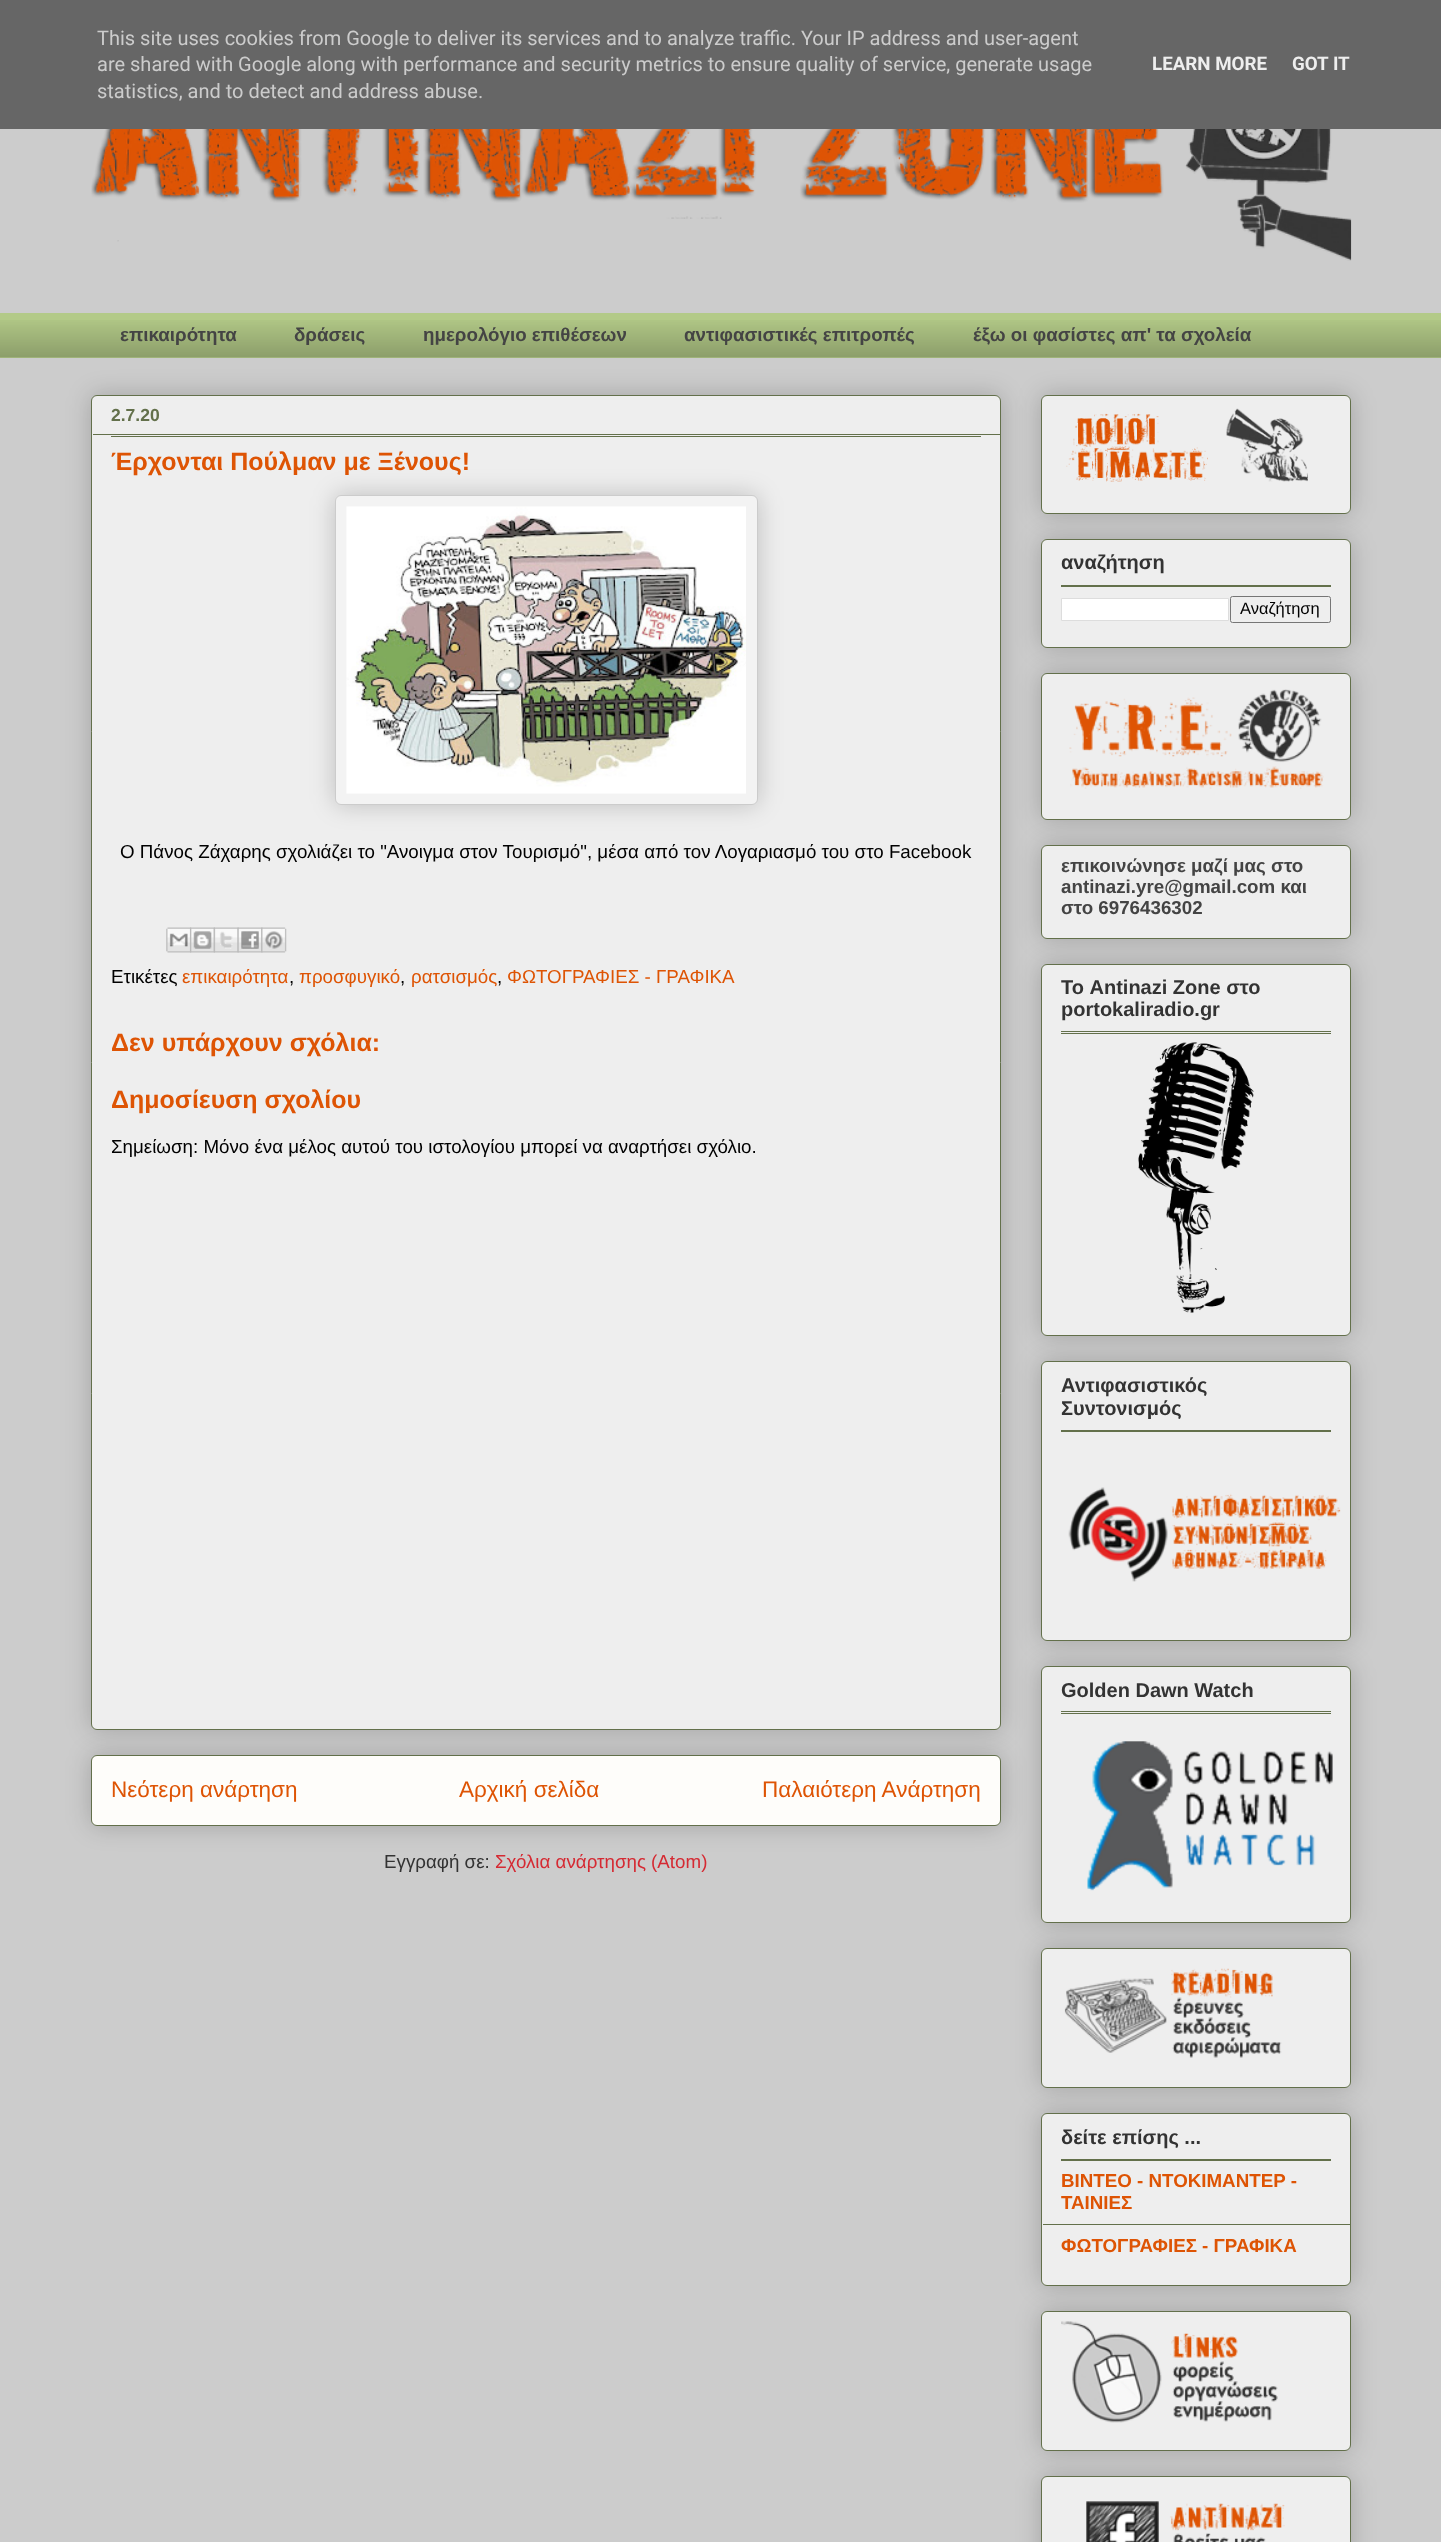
async function draw(canvas) {
	canvas.width = 1441;
	canvas.height = 2542;
	const c = canvas.getContext('2d');
	c.miterLimit = 4;
	c.fontKerning = 'normal';
	async function loadImage(src) {
		const img = new Image();
		img.src = src;
		await img.decode();
		return img;
	}

	c.fillStyle = '#ccc';
	c.fillRect(0, 0, 1441, 2542);
	c.fillStyle = '#666';
	c.fillRect(0, 0, 1441, 129);
	c.font = '20px Roboto';
	c.fillStyle = '#ccc';
	for (const [text, x, y] of [
		['This site uses cookies from Google to deliver its services and to analyze traffic. Your IP address and user-agent', 97, 45],
		['are shared with Google along with performance and security metrics to ensure quality of service, generate usage', 97, 71],
		['statistics, and to detect and address abuse.', 97, 98],
	]) {
		c.fillText(text, x, y);
	}
	c.font = 'bold 18.75px Roboto';
	c.fillStyle = '#eee';
	c.fillText('LEARN MORE', 1152, 70);
	c.fillText('GOT IT', 1292, 70);
	c.drawImage(await loadImage('img1.png'), 91, 129, 1261, 132);
	c.fillStyle = '#b3ca88';
	c.fillRect(0, 313, 1441, 45);
	c.drawImage(await loadImage('img2.png'), 0, 320, 1441, 38);
	c.font = 'bold 18.75px Liberation Sans';
	c.fillStyle = '#444';
	for (const [text, x, y] of [
		['επικαιρότητα', 120, 341],
		['δράσεις', 294, 341],
		['ημερολόγιο επιθέσεων', 423, 341],
		['αντιφασιστικές επιτροπές', 684, 341],
		['έξω οι φασίστες απ\' τα σχολεία', 973, 341],
	]) {
		c.fillText(text, x, y);
	}
	c.fillStyle = '#00000033';
	c.filter = 'blur(12.5px)';
	c.beginPath();
	c.roundRect(91, 1755, 910, 71, 6);
	c.fill();
	c.filter = 'none';
	c.fillStyle = '#fefdfa';
	c.beginPath();
	c.roundRect(91.5, 1755.5, 909, 70, 5.5);
	c.fill();
	c.strokeStyle = '#63704b';
	c.stroke();
	c.fillStyle = '#00000033';
	c.filter = 'blur(12.5px)';
	c.beginPath();
	c.roundRect(91, 395, 910, 1335, 6);
	c.fill();
	c.filter = 'none';
	c.fillStyle = '#eee';
	c.beginPath();
	c.roundRect(91.5, 395.5, 909, 1334, 5.5);
	c.fill();
	c.stroke();
	c.fillStyle = '#63704b';
	c.fillRect(93, 434, 907, 1);
	c.font = 'bold 17.5px Liberation Sans';
	c.fillText('2.7.20', 111, 421);
	c.fillRect(111, 436, 870, 1);
	c.font = 'bold 25px Liberation Sans';
	c.fillStyle = '#de5404';
	c.fillText('Έρχονται Πούλμαν με Ξένους!', 111, 470);
	c.fillStyle = '#00000033';
	c.filter = 'blur(12.5px)';
	c.beginPath();
	c.roundRect(335, 495, 423, 310, 6);
	c.fill();
	c.filter = 'none';
	c.fillStyle = '#f3f3f3';
	c.beginPath();
	c.roundRect(335.5, 495.5, 422, 309, 5.5);
	c.fill();
	c.strokeStyle = '#ccc';
	c.stroke();
	c.drawImage(await loadImage('img3.png'), 346, 506, 400, 288);
	c.font = '18.75px Liberation Sans';
	c.fillStyle = '#000';
	c.fillText('Ο Πάνος Ζάχαρης σχολιάζει το "Ανοιγμα στον Τουρισμό", μέσα από τον Λογαριασμό του στο Facebook', 120, 858);
	c.drawImage(await loadImage('img4.png'), 166, 927, 26, 26);
	c.drawImage(await loadImage('img5.png'), 190, 927, 25, 26);
	c.drawImage(await loadImage('img6.png'), 213, 927, 26, 26);
	c.drawImage(await loadImage('img7.png'), 237, 927, 26, 26);
	c.drawImage(await loadImage('img8.png'), 261, 927, 26, 26);
	c.fillText('Ετικέτες', 111, 983);
	c.fillStyle = '#de5404';
	c.fillText('επικαιρότητα', 182, 983);
	c.fillStyle = '#000';
	c.fillText(',', 289, 983);
	c.fillStyle = '#de5404';
	c.fillText('προσφυγικό', 299, 983);
	c.fillStyle = '#000';
	c.fillText(',', 400, 983);
	c.fillStyle = '#de5404';
	c.fillText('ρατσισμός', 411, 983);
	c.fillStyle = '#000';
	c.fillText(',', 497, 983);
	c.fillStyle = '#de5404';
	c.fillText('ΦΩΤΟΓΡΑΦΙΕΣ - ΓΡΑΦΙΚΑ', 507, 983);
	c.font = 'bold 25px Liberation Sans';
	c.fillText('Δεν υπάρχουν σχόλια:', 111, 1051);
	c.fillText('Δημοσίευση σχολίου', 111, 1108);
	c.font = '18.75px Liberation Sans';
	c.fillStyle = '#000';
	c.fillText('Σημείωση: Μόνο ένα μέλος αυτού του ιστολογίου μπορεί να αναρτήσει σχόλιο.', 111, 1153);
	c.font = '22.5px Liberation Sans';
	c.fillStyle = '#de5404';
	for (const [text, x, y] of [
		['Νεότερη ανάρτηση', 111, 1797],
		['Αρχική σελίδα', 459, 1797],
		['Παλαιότερη Ανάρτηση', 762, 1797],
	]) {
		c.fillText(text, x, y);
	}
	c.font = '18.75px Liberation Sans';
	c.fillStyle = '#333';
	c.fillText('Εγγραφή σε:', 384, 1868);
	c.fillStyle = '#d52a33';
	c.fillText('Σχόλια ανάρτησης (Atom)', 495, 1868);
	c.fillStyle = '#00000033';
	c.filter = 'blur(12.5px)';
	c.beginPath();
	c.roundRect(1041, 395, 310, 119, 6);
	c.fill();
	c.filter = 'none';
	c.fillStyle = '#eee';
	c.beginPath();
	c.roundRect(1041.5, 395.5, 309, 118, 5.5);
	c.fill();
	c.strokeStyle = '#63704b';
	c.stroke();
	c.drawImage(await loadImage('img9.png'), 1066, 408, 242, 74);
	c.fillStyle = '#00000033';
	c.filter = 'blur(12.5px)';
	c.beginPath();
	c.roundRect(1041, 539, 310, 109, 6);
	c.fill();
	c.filter = 'none';
	c.fillStyle = '#eee';
	c.beginPath();
	c.roundRect(1041.5, 539.5, 309, 108, 5.5);
	c.fill();
	c.stroke();
	c.font = 'bold 20px Liberation Sans';
	c.fillStyle = '#333';
	c.fillText('αναζήτηση', 1061, 569);
	c.fillStyle = '#63704b';
	c.fillRect(1061, 585, 270, 2);
	c.fillStyle = '#fff';
	c.beginPath();
	c.rect(1061.5, 598.5, 167, 22);
	c.fill();
	c.strokeStyle = '#ddd';
	c.stroke();
	c.beginPath();
	c.roundRect(1230.5, 596.5, 100, 26, 2);
	c.strokeStyle = '#767676';
	c.stroke();
	c.font = '16.5px Liberation Sans';
	c.fillStyle = '#000';
	c.fillText('Αναζήτηση', 1240, 614);
	c.fillStyle = '#00000033';
	c.filter = 'blur(12.5px)';
	c.beginPath();
	c.roundRect(1041, 673, 310, 147, 6);
	c.fill();
	c.filter = 'none';
	c.fillStyle = '#eee';
	c.beginPath();
	c.roundRect(1041.5, 673.5, 309, 146, 5.5);
	c.fill();
	c.strokeStyle = '#63704b';
	c.stroke();
	c.drawImage(await loadImage('img10.png'), 1069, 689, 255, 100);
	c.fillStyle = '#00000033';
	c.filter = 'blur(12.5px)';
	c.beginPath();
	c.roundRect(1041, 845, 310, 94, 6);
	c.fill();
	c.filter = 'none';
	c.fillStyle = '#eee';
	c.beginPath();
	c.roundRect(1041.5, 845.5, 309, 93, 5.5);
	c.fill();
	c.stroke();
	c.font = 'bold 18.75px Liberation Sans';
	c.fillStyle = '#444';
	for (const [text, x, y] of [
		['επικοινώνησε μαζί μας στο', 1061, 872],
		['antinazi.yre@gmail.com και', 1061, 893],
		['στο 6976436302', 1061, 914],
	]) {
		c.fillText(text, x, y);
	}
	c.fillStyle = '#00000033';
	c.filter = 'blur(12.5px)';
	c.beginPath();
	c.roundRect(1041, 964, 310, 372, 6);
	c.fill();
	c.filter = 'none';
	c.fillStyle = '#eee';
	c.beginPath();
	c.roundRect(1041.5, 964.5, 309, 371, 5.5);
	c.fill();
	c.stroke();
	c.fillStyle = '#63704b';
	c.fillRect(1061, 1031, 270, 1);
	c.font = 'bold 20px Liberation Sans';
	c.fillStyle = '#333';
	c.fillText('Το Antinazi Zone στο', 1061, 994);
	c.fillText('portokaliradio.gr', 1061, 1016);
	c.fillStyle = '#63704b';
	c.fillRect(1061, 1033, 270, 1);
	c.drawImage(await loadImage('img11.png'), 1138, 1042, 116, 271);
	c.fillStyle = '#00000033';
	c.filter = 'blur(12.5px)';
	c.beginPath();
	c.roundRect(1041, 1361, 310, 280, 6);
	c.fill();
	c.filter = 'none';
	c.fillStyle = '#eee';
	c.beginPath();
	c.roundRect(1041.5, 1361.5, 309, 279, 5.5);
	c.fill();
	c.stroke();
	c.fillStyle = '#333';
	c.fillText('Αντιφασιστικός', 1061, 1392);
	c.fillText('Συντονισμός', 1061, 1415);
	c.fillStyle = '#63704b';
	c.fillRect(1061, 1430, 270, 2);
	c.drawImage(await loadImage('img12.png'), 1068, 1487, 273, 95);
	c.fillStyle = '#00000033';
	c.filter = 'blur(12.5px)';
	c.beginPath();
	c.roundRect(1041, 1666, 310, 257, 6);
	c.fill();
	c.filter = 'none';
	c.fillStyle = '#eee';
	c.beginPath();
	c.roundRect(1041.5, 1666.5, 309, 256, 5.5);
	c.fill();
	c.stroke();
	c.fillStyle = '#63704b';
	c.fillRect(1061, 1711, 270, 1);
	c.fillStyle = '#333';
	c.fillText('Golden Dawn Watch', 1061, 1697);
	c.fillStyle = '#63704b';
	c.fillRect(1061, 1713, 270, 1);
	c.drawImage(await loadImage('img13.png'), 1087, 1741, 246, 150);
	c.fillStyle = '#00000033';
	c.filter = 'blur(12.5px)';
	c.beginPath();
	c.roundRect(1041, 1948, 310, 140, 6);
	c.fill();
	c.filter = 'none';
	c.fillStyle = '#eee';
	c.beginPath();
	c.roundRect(1041.5, 1948.5, 309, 139, 5.5);
	c.fill();
	c.stroke();
	c.drawImage(await loadImage('img14.png'), 1064, 1968, 218, 90);
	c.fillStyle = '#00000033';
	c.filter = 'blur(12.5px)';
	c.beginPath();
	c.roundRect(1041, 2113, 310, 173, 6);
	c.fill();
	c.filter = 'none';
	c.fillStyle = '#eee';
	c.beginPath();
	c.roundRect(1041.5, 2113.5, 309, 172, 5.5);
	c.fill();
	c.stroke();
	c.fillStyle = '#333';
	c.fillText('δείτε επίσης ...', 1061, 2144);
	c.fillStyle = '#63704b';
	c.fillRect(1061, 2159, 270, 2);
	c.fillRect(1043, 2224, 307, 1);
	c.font = 'bold 18.75px Liberation Sans';
	c.fillStyle = '#de5404';
	for (const [text, x, y] of [
		['ΒΙΝΤΕΟ - ΝΤΟΚΙΜΑΝΤΕΡ -', 1061, 2187],
		['ΤΑΙΝΙΕΣ', 1061, 2209],
		['ΦΩΤΟΓΡΑΦΙΕΣ - ΓΡΑΦΙΚΑ', 1061, 2252],
	]) {
		c.fillText(text, x, y);
	}
	c.fillStyle = '#00000033';
	c.filter = 'blur(12.5px)';
	c.beginPath();
	c.roundRect(1041, 2311, 310, 140, 6);
	c.fill();
	c.filter = 'none';
	c.fillStyle = '#eee';
	c.beginPath();
	c.roundRect(1041.5, 2311.5, 309, 139, 5.5);
	c.fill();
	c.stroke();
	c.drawImage(await loadImage('img15.png'), 1061, 2321, 217, 102);
	c.fillStyle = '#00000033';
	c.filter = 'blur(12.5px)';
	c.beginPath();
	c.roundRect(1041, 2476, 310, 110, 6);
	c.fill();
	c.filter = 'none';
	c.fillStyle = '#eee';
	c.beginPath();
	c.roundRect(1041.5, 2476.5, 309, 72, 5.5);
	c.fill();
	c.stroke();
	c.drawImage(await loadImage('img16.png'), 1086, 2501, 199, 41);
}

draw(document.querySelector('canvas'));
